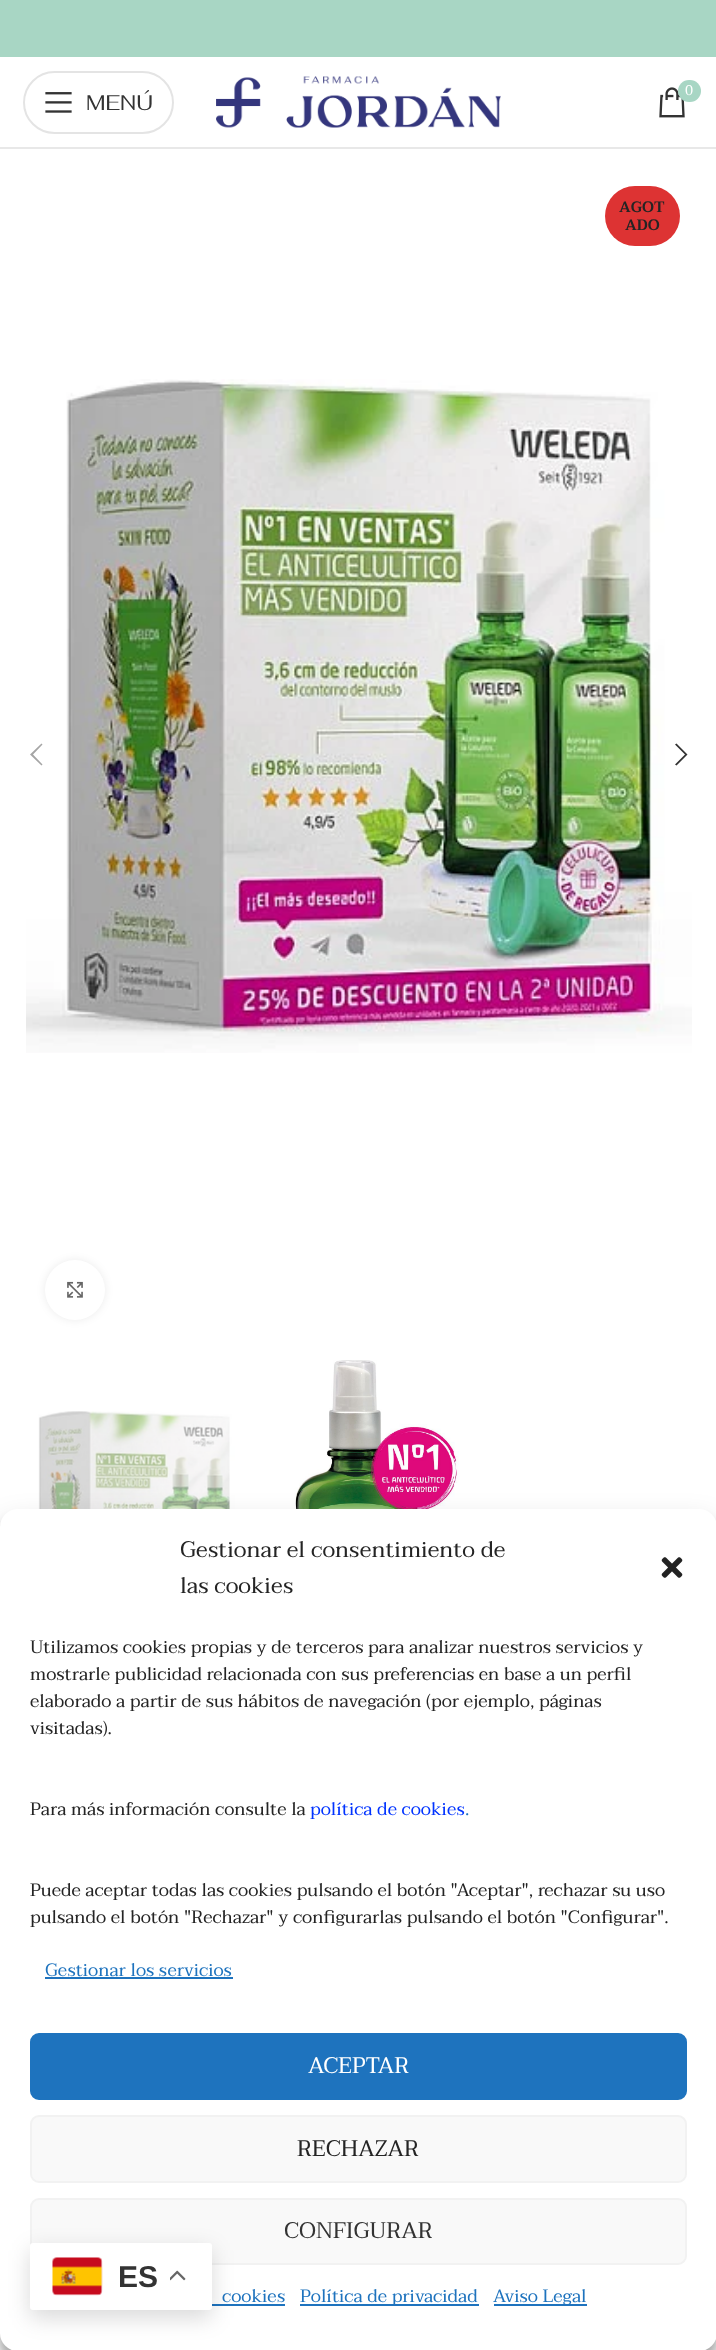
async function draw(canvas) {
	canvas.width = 716;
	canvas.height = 2350;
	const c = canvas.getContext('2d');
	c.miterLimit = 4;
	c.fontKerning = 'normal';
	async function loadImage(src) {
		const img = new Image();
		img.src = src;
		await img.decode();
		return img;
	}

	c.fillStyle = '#fff';
	c.fillRect(0, 0, 716, 2350);
	c.fillStyle = '#a8d6c4';
	c.fillRect(0, 0, 716, 57);
	c.fillStyle = '#e8e8e8';
	c.fillRect(0, 147, 716, 2);
	c.beginPath();
	c.roundRect(24, 72, 149, 61, 30.5);
	c.strokeStyle = '#e4e4e4';
	c.lineWidth = 2;
	c.stroke();
	c.drawImage(await loadImage('img1.png'), 45, 92, 27, 21);
	c.font = '21px Fahkwang';
	c.fillStyle = '#333';
	c.fillText('MENÚ', 86, 110);
	c.drawImage(await loadImage('img2.png'), 216, 76, 285, 52);
	c.drawImage(await loadImage('img3.png'), 659, 87, 26, 31);
	c.fillStyle = '#a8d6c4';
	c.beginPath();
	c.roundRect(678, 80, 23, 22, 11);
	c.fill();
	c.font = '14px Taviraj';
	c.fillStyle = '#fff';
	c.fillText('0', 685, 95);
	c.fillStyle = '#d33';
	c.beginPath();
	c.roundRect(605, 186, 75, 60, 30);
	c.fill();
	c.font = '600 15px Taviraj';
	c.fillStyle = '#242424';
	c.fillText('AGOT', 619, 212);
	c.fillText('ADO', 625, 230);
	c.drawImage(await loadImage('img4.png'), 26, 379, 666, 674);
	c.fillStyle = '#a5a5a5';
	c.beginPath();
	c.moveTo(42.5, 744.5);
	c.lineTo(41.5, 743.5);
	c.lineTo(30, 754.5);
	c.lineTo(41.5, 765.5);
	c.lineTo(42.5, 764.5);
	c.lineTo(33, 754.5);
	c.closePath();
	c.fill();
	c.fillStyle = '#333';
	c.beginPath();
	c.moveTo(675, 744.5);
	c.lineTo(685, 754.5);
	c.lineTo(675, 764.5);
	c.lineTo(676.5, 765.5);
	c.lineTo(687.5, 754.5);
	c.lineTo(676.5, 743.5);
	c.closePath();
	c.fill();
	c.fillStyle = '#00000014';
	c.filter = 'blur(4px)';
	c.beginPath();
	c.roundRect(45, 1260, 60, 60, 30);
	c.fill();
	c.filter = 'none';
	c.fillStyle = '#fff';
	c.beginPath();
	c.arc(75, 1290, 30, 0, 2 * Math.PI);
	c.fill();
	c.drawImage(await loadImage('img5.png'), 67, 1281, 16, 17);
	c.drawImage(await loadImage('img6.png'), 26, 1411, 216, 98);
	c.drawImage(await loadImage('img7.png'), 263, 1360, 196, 149);
	c.fillStyle = '#0000003b';
	c.filter = 'blur(4.5px)';
	c.beginPath();
	c.roundRect(0, 1518, 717, 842, 18);
	c.fill();
	c.filter = 'none';
	c.fillStyle = '#00000030';
	c.filter = 'blur(15px)';
	c.beginPath();
	c.roundRect(0, 1524, 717, 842, 18);
	c.fill();
	c.filter = 'none';
	c.fillStyle = '#fff';
	c.beginPath();
	c.roundRect(0, 1509, 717, 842, 18);
	c.fill();
	c.font = '22.5px Taviraj';
	c.fillStyle = '#242424';
	c.fillText('Gestionar el consentimiento de', 180, 1557);
	c.fillText('las cookies', 180, 1593);
	c.drawImage(await loadImage('img8.png'), 661, 1557, 22, 21);
	c.font = '18px Taviraj';
	for (const [text, x, y] of [
		['Utilizamos cookies propias y de terceros para analizar nuestros servicios y', 30, 1653],
		['mostrarle publicidad relacionada con sus preferencias en base a un perfil', 30, 1680],
		['elaborado a partir de sus hábitos de navegación (por ejemplo, páginas', 30, 1707],
		['visitadas).', 30, 1734],
		['Para más información consulte la', 30, 1815],
	]) {
		c.fillText(text, x, y);
	}
	c.fillStyle = '#03f';
	c.fillText('política de cookies', 310, 1815);
	c.fillStyle = '#1e73be';
	c.fillText('.', 465, 1815);
	c.fillStyle = '#242424';
	c.fillText('Puede aceptar todas las cookies pulsando el botón "Aceptar", rechazar su uso', 30, 1896);
	c.fillText('pulsando el botón "Rechazar" y configurarlas pulsando el botón "Configurar".', 30, 1923);
	c.fillStyle = '#1e73be';
	c.fillText('Gestionar los servicios', 45, 1976);
	c.fillRect(45, 1977, 188, 2);
	c.beginPath();
	c.roundRect(31, 2034, 655, 65, 8);
	c.fill();
	c.strokeStyle = '#1e73be';
	c.stroke();
	c.font = '22.5px Taviraj';
	c.fillStyle = '#fff';
	c.fillText('ACEPTAR', 308, 2073);
	c.fillStyle = '#f9f9f9';
	c.beginPath();
	c.roundRect(31, 2116, 655, 66, 8);
	c.fill();
	c.strokeStyle = '#f2f2f2';
	c.stroke();
	c.fillStyle = '#242424';
	c.fillText('RECHAZAR', 297, 2156);
	c.fillStyle = '#f9f9f9';
	c.beginPath();
	c.roundRect(31, 2199, 655, 65, 8);
	c.fill();
	c.stroke();
	c.fillStyle = '#333';
	c.fillText('CONFIGURAR', 284, 2238);
	c.font = '18px Taviraj';
	c.fillStyle = '#1e73be';
	c.fillText('cookies', 222, 2302);
	c.fillRect(212, 2304, 73, 2);
	c.fillRect(300, 2304, 179, 2);
	c.fillText('Política de privacidad', 300, 2302);
	c.fillRect(494, 2304, 93, 2);
	c.fillText('Aviso Legal', 493, 2302);
	c.fillStyle = '#00000026';
	c.filter = 'blur(11px)';
	c.beginPath();
	c.roundRect(30, 2250, 182, 68, 3);
	c.fill();
	c.filter = 'none';
	c.fillStyle = '#fff';
	c.beginPath();
	c.roundRect(30, 2243, 182, 67, 3);
	c.fill();
	c.drawImage(await loadImage('img9.png'), 52, 2257, 51, 39);
	c.font = 'bold 30px Liberation Sans';
	c.fillStyle = '#333';
	c.fillText('ES', 118, 2287);
	c.drawImage(await loadImage('img10.png'), 170, 2270, 16, 11);
}

draw(document.querySelector('canvas'));
